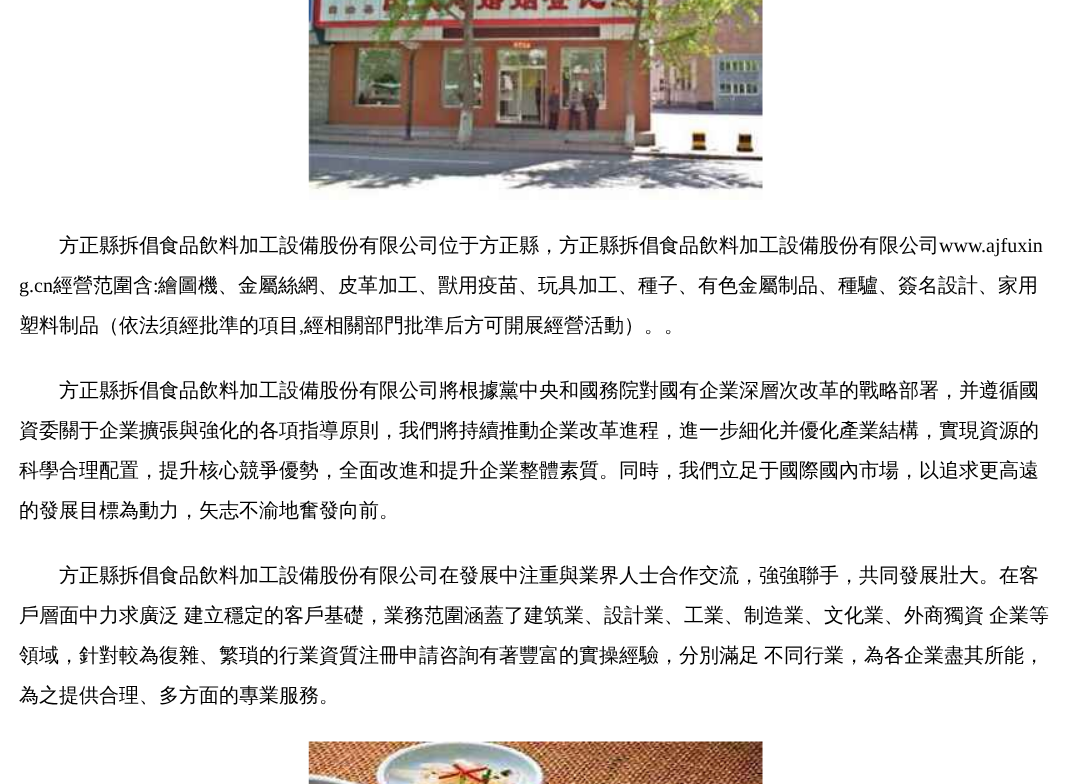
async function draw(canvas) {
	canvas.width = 1069;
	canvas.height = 784;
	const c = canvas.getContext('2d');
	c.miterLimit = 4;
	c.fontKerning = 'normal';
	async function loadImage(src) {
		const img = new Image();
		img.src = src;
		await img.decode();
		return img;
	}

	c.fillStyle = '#fff';
	c.fillRect(0, 0, 1069, 784);
	c.drawImage(await loadImage('img1.png'), 308, 0, 455, 200);
	c.font = '500 20px WenQuanYi Zen Hei';
	c.fillStyle = '#000';
	c.fillText('方正縣拆倡食品飲料加工設備股份有限公司位于方正縣，方正縣拆倡食品飲料加工設備股份有限公司', 59, 252);
	c.font = '20px Liberation Serif';
	c.fillText('www.ajfuxin', 939, 252);
	c.fillText('g.cn', 19, 292);
	c.font = '500 20px WenQuanYi Zen Hei';
	c.fillText('經營范圍含', 53, 292);
	c.font = '20px Liberation Serif';
	c.fillText(':', 153, 292);
	c.font = '500 20px WenQuanYi Zen Hei';
	c.fillText('繪圖機、金屬絲網、皮革加工、獸用疫苗、玩具加工、種子、有色金屬制品、種驢、簽名設計、家用', 158, 292);
	c.fillText('塑料制品（依法須經批準的項目', 19, 332);
	c.font = '20px Liberation Serif';
	c.fillText(',', 299, 332);
	c.font = '500 20px WenQuanYi Zen Hei';
	for (const [text, x, y] of [
		['經相關部門批準后方可開展經營活動）。。', 304, 332],
		['方正縣拆倡食品飲料加工設備股份有限公司將根據黨中央和國務院對國有企業深層次改革的戰略部署，并遵循國', 59, 397],
		['資委關于企業擴張與強化的各項指導原則，我們將持續推動企業改革進程，進一步細化并優化產業結構，實現資源的', 19, 437],
		['科學合理配置，提升核心競爭優勢，全面改進和提升企業整體素質。同時，我們立足于國際國內市場，以追求更高遠', 19, 477],
		['的發展目標為動力，矢志不渝地奮發向前。', 19, 517],
		['方正縣拆倡食品飲料加工設備股份有限公司在發展中注重與業界人士合作交流，強強聯手，共同發展壯大。在客', 59, 582],
	]) {
		c.fillText(text, x, y);
	}
	c.wordSpacing = '-1px';
	c.fillText('戶層面中力求廣泛 建立穩定的客戶基礎，業務范圍涵蓋了建筑業、設計業、工業、制造業、文化業、外商獨資 企業等', 19, 622);
	c.fillText('領域，針對較為復雜、繁瑣的行業資質注冊申請咨詢有著豐富的實操經驗，分別滿足 不同行業，為各企業盡其所能，', 19, 662);
	c.wordSpacing = '0px';
	c.fillText('為之提供合理、多方面的專業服務。', 19, 702);
	c.drawImage(await loadImage('img2.png'), 308, 741, 455, 43);
}

draw(document.querySelector('canvas'));
